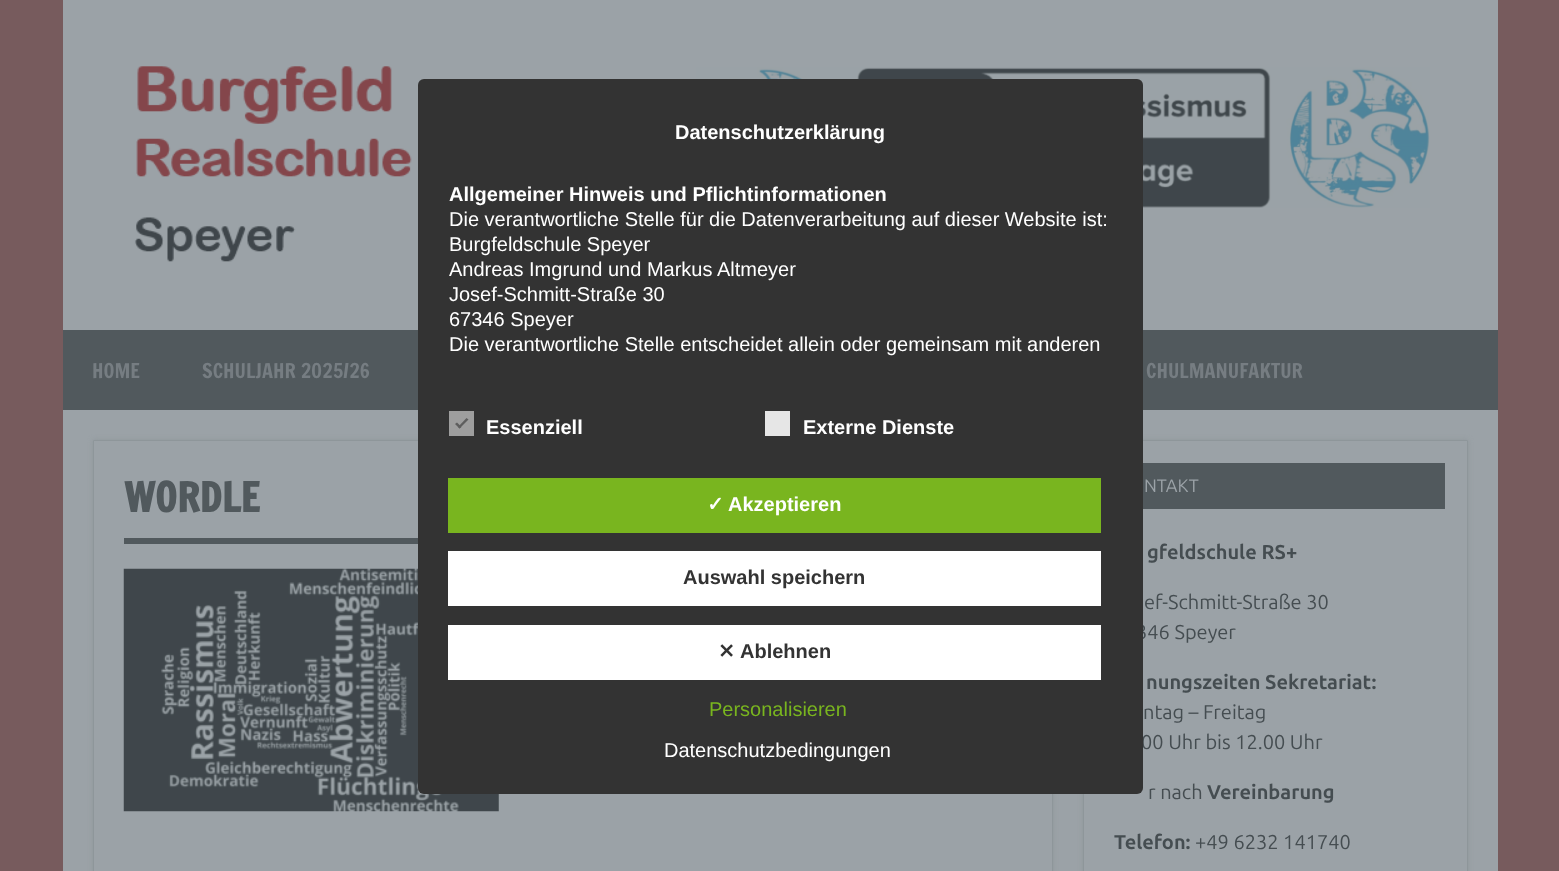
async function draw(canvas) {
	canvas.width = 1559;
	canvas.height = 871;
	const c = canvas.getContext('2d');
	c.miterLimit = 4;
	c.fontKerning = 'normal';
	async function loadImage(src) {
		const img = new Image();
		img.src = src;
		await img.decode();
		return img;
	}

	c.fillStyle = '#775b5d';
	c.fillRect(0, 0, 1559, 871);
	c.fillStyle = '#9ba2a7';
	c.fillRect(63, 0, 1435, 871);
	c.drawImage(await loadImage('img2.png'), 696, 67, 734, 141);
	c.fillStyle = '#51595d';
	c.fillRect(63, 330, 1435, 80);
	c.fillStyle = '#8e969a';
	c.filter = 'blur(2.5px)';
	c.beginPath();
	c.rect(93, 440, 960, 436);
	c.fill();
	c.filter = 'none';
	c.fillStyle = '#9ba2a7';
	c.beginPath();
	c.rect(93.5, 440.5, 959, 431);
	c.fill();
	c.strokeStyle = '#8e969a';
	c.stroke();
	c.drawImage(await loadImage('img3.png'), 123, 568, 376, 244);
	c.fillStyle = '#8e969a';
	c.filter = 'blur(2.5px)';
	c.beginPath();
	c.rect(1083, 440, 385, 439);
	c.fill();
	c.filter = 'none';
	c.fillStyle = '#9ba2a7';
	c.beginPath();
	c.rect(1083.5, 440.5, 384, 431);
	c.fill();
	c.stroke();
	c.font = '20px Ubuntu';
	c.fillStyle = '#454d51';
	c.fillText('346 Speyer', 1136, 639);
	c.fillText('00 Uhr bis 12.00 Uhr', 1141, 749);
	c.fillStyle = '#333';
	c.beginPath();
	c.roundRect(418, 79, 725, 715, 6);
	c.fill();
	c.font = 'bold 20px Liberation Sans';
	c.fillStyle = '#fff';
	c.fillText('Datenschutzerklärung', 675, 139);
	c.fillText('Allgemeiner Hinweis und Pflichtinformationen', 449, 201);
	c.font = '20px Liberation Sans';
	for (const [text, x, y] of [
		['Die verantwortliche Stelle für die Datenverarbeitung auf dieser Website ist:', 449, 226],
		['Burgfeldschule Speyer', 449, 251],
		['Andreas Imgrund und Markus Altmeyer', 449, 276],
		['Josef-Schmitt-Straße 30', 449, 301],
		['67346 Speyer', 449, 326],
		['Die verantwortliche Stelle entscheidet allein oder gemeinsam mit anderen', 449, 351],
	]) {
		c.fillText(text, x, y);
	}
	c.fillStyle = '#9e9e9e';
	c.fillRect(449, 411, 25, 25);
	c.fillStyle = '#5e5e5e';
	c.beginPath();
	c.moveTo(466.5, 418);
	c.lineTo(468.5, 419.5);
	c.lineTo(459.5, 428.5);
	c.lineTo(458, 427);
	c.closePath();
	c.fill();
	c.beginPath();
	c.moveTo(457, 422.5);
	c.lineTo(461.5, 427);
	c.lineTo(459.5, 428.5);
	c.lineTo(455, 424);
	c.closePath();
	c.fill();
	c.font = 'bold 20px Liberation Sans';
	c.fillStyle = '#fff';
	c.fillText('Essenziell', 486, 434);
	c.fillStyle = '#e6e6e6';
	c.fillRect(765, 411, 25, 25);
	c.fillStyle = '#fff';
	c.fillText('Externe Dienste', 803, 434);
	c.fillStyle = '#79b51f';
	c.fillRect(448, 478, 653, 55);
	c.font = 'bold 20px DejaVu Sans';
	c.fillStyle = '#fff';
	c.fillText('✓', 707, 511);
	c.font = 'bold 20px Liberation Sans';
	c.fillText('Akzeptieren', 728, 511);
	c.fillRect(448, 551, 653, 55);
	c.fillStyle = '#333';
	c.fillText('Auswahl speichern', 683, 584);
	c.fillStyle = '#fff';
	c.fillRect(448, 625, 653, 55);
	c.font = 'bold 20px DejaVu Sans';
	c.fillStyle = '#333';
	c.fillText('✕', 718, 658);
	c.font = 'bold 20px Liberation Sans';
	c.fillText('Ablehnen', 740, 658);
	c.font = '20px Liberation Sans';
	c.fillStyle = '#79b51f';
	c.fillText('Personalisieren', 709, 716);
	c.fillStyle = '#fff';
	c.fillText('Datenschutzbedingungen', 664, 757);
	c.drawImage(await loadImage('img1.png'), 134, 66, 278, 196);
	c.font = '20px Francois One';
	c.fillStyle = '#767d82';
	for (const [text, x, y] of [
		['HOME', 92, 378],
		['SCHULJAHR 2025/26', 202, 378],
		['CHULMANUFAKTUR', 1146, 378],
	]) {
		c.fillText(text, x, y);
	}
	c.fillStyle = '#51595d';
	c.fillRect(124, 538, 294, 6);
	c.font = 'bold 40px Francois One';
	c.fillText('WORDLE', 124, 512);
	c.fillRect(1143, 463, 302, 46);
	c.font = '18px Ubuntu';
	c.fillStyle = '#9ba2a7';
	c.fillText('NTAKT', 1144, 492);
	c.font = 'bold 20px Ubuntu';
	c.fillStyle = '#454d51';
	c.fillText('gfeldschule RS+', 1147, 559);
	c.font = '20px Ubuntu';
	c.fillText('ef-Schmitt-Straße 30', 1144, 609);
	c.font = 'bold 20px Ubuntu';
	c.fillText('nungszeiten Sekretariat:', 1146, 689);
	c.font = '20px Ubuntu';
	c.fillText('ntag – Freitag', 1143, 719);
	c.fillText('r nach', 1148, 799);
	c.font = 'bold 20px Ubuntu';
	c.fillText('Vereinbarung', 1207, 799);
	c.fillText('Telefon:', 1114, 849);
	c.font = '20px Ubuntu';
	c.fillText('+49 6232 141740', 1195, 849);
}

draw(document.querySelector('canvas'));
